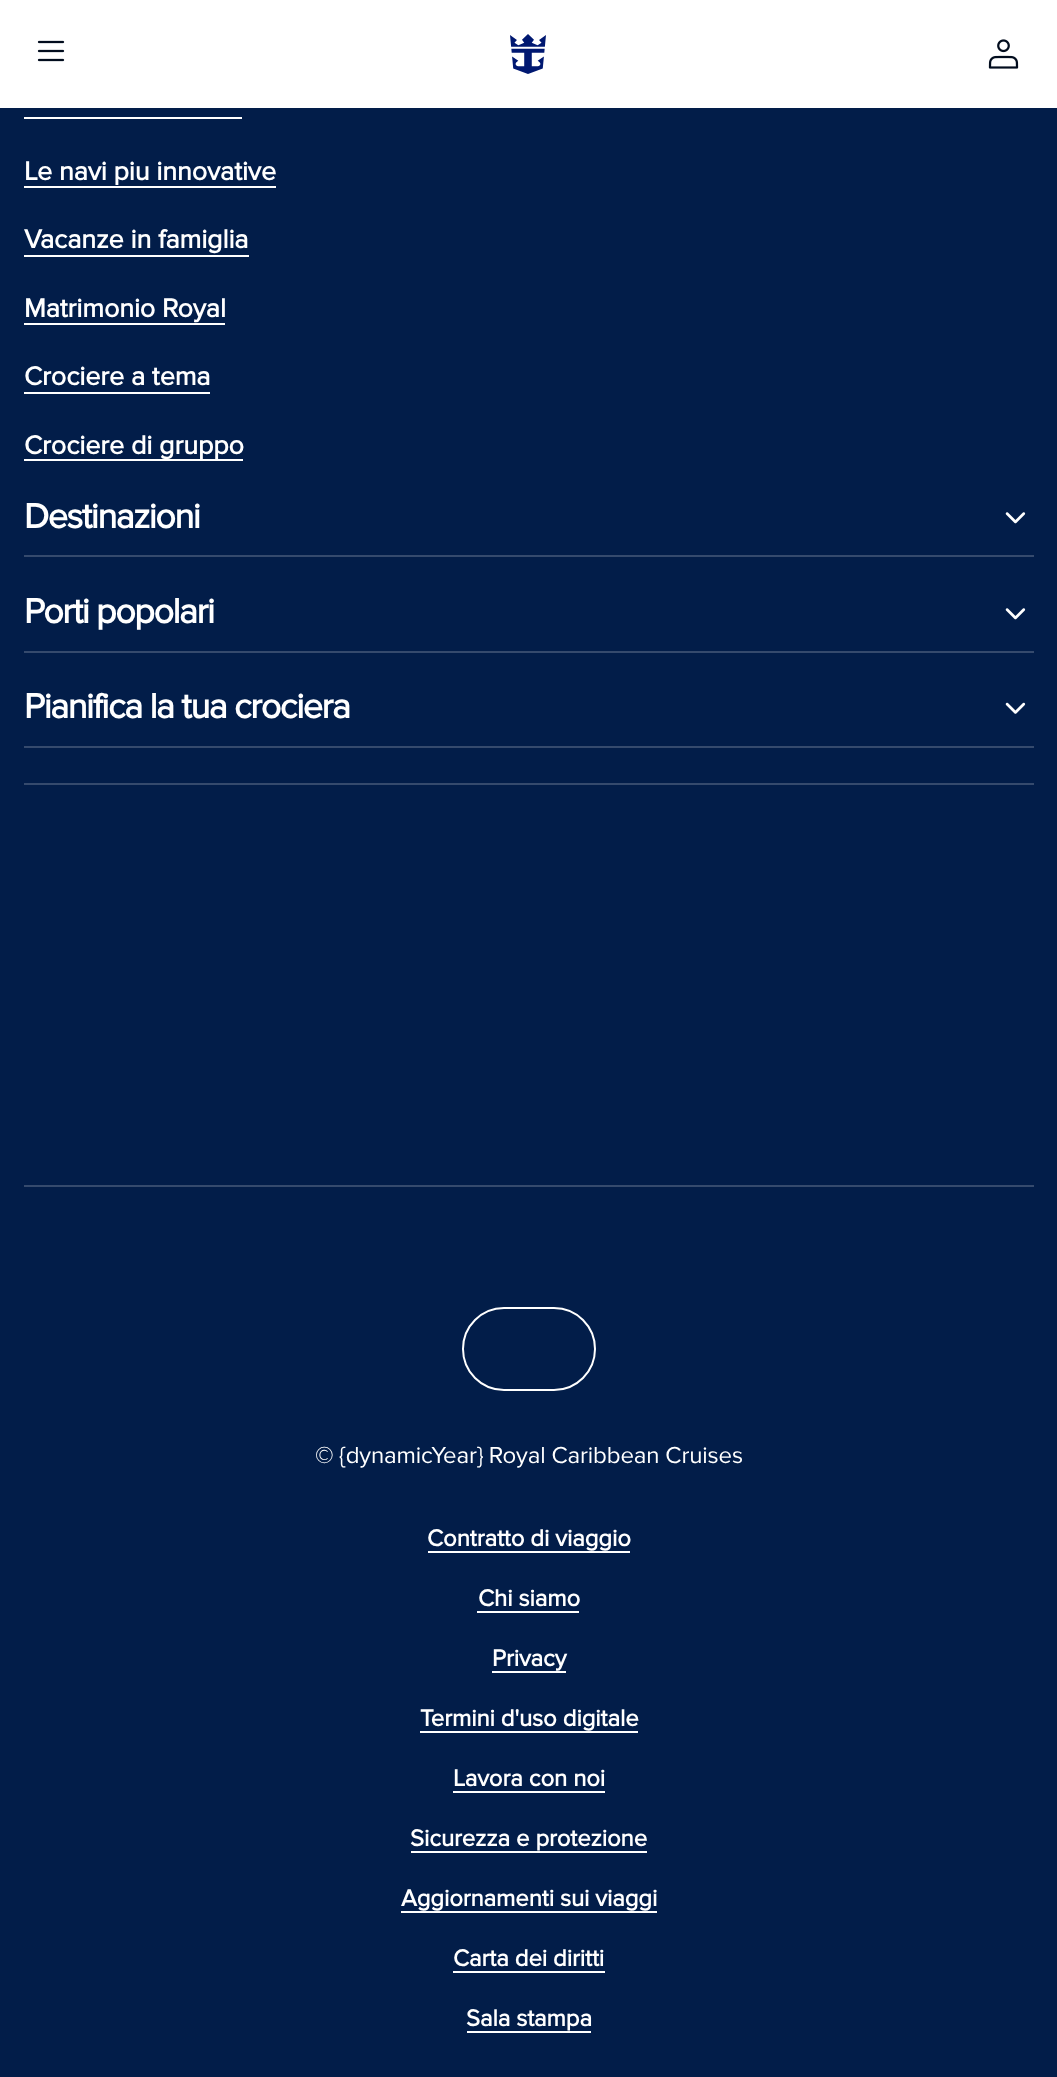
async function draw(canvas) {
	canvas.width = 1057;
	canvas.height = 2077;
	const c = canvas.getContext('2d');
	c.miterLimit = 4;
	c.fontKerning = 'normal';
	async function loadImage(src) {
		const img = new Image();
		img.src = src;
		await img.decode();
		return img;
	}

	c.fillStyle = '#021d49';
	c.fillRect(0, 0, 1057, 2077);
	c.fillStyle = '#fff';
	c.fillRect(0, 0, 1057, 108);
	c.drawImage(await loadImage('img1.png'), 37, 40, 28, 22);
	c.drawImage(await loadImage('img2.png'), 510, 34, 36, 40);
	c.drawImage(await loadImage('img3.png'), 988, 39, 31, 30);
	c.fillRect(24, 117, 218, 2);
	c.letterSpacing = '-0.15px';
	c.font = 'bold 27px Proxima Nova';
	c.fillText('Le navi piu innovative', 24, 180);
	c.fillRect(24, 186, 252, 2);
	c.fillText('Vacanze in famiglia', 24, 248);
	c.fillRect(24, 255, 225, 2);
	c.fillText('Matrimonio Royal', 24, 317);
	c.fillRect(24, 323, 201, 2);
	c.fillText('Crociere a tema', 24, 385);
	c.fillRect(24, 392, 186, 2);
	c.fillRect(24, 459, 219, 2);
	c.fillText('Crociere di gruppo', 24, 454);
	c.fillStyle = '#354a6d';
	c.fillRect(24, 555, 1010, 2);
	c.letterSpacing = '-1.5px';
	c.font = 'bold 36px Proxima Nova';
	c.fillStyle = '#fff';
	c.fillText('Destinazioni', 24, 528);
	c.drawImage(await loadImage('img4.png'), 1005, 512, 21, 12);
	c.fillStyle = '#354a6d';
	c.fillRect(24, 651, 1010, 2);
	c.fillStyle = '#fff';
	c.fillText('Porti popolari', 24, 623);
	c.drawImage(await loadImage('img4.png'), 1005, 608, 21, 12);
	c.fillStyle = '#354a6d';
	c.fillRect(24, 746, 1010, 2);
	c.fillStyle = '#fff';
	c.fillText('Pianifica la tua crociera', 24, 718);
	c.drawImage(await loadImage('img5.png'), 1005, 702, 21, 12);
	c.fillStyle = '#354a6d';
	c.fillRect(24, 783, 1010, 2);
	c.fillRect(24, 1185, 1010, 2);
	c.beginPath();
	c.roundRect(463, 1308, 132, 82, 41);
	c.strokeStyle = '#fff';
	c.lineWidth = 2;
	c.stroke();
	c.letterSpacing = '-0.15px';
	c.font = '24px Proxima Nova';
	c.fillStyle = '#fff';
	c.fillText('© {dynamicYear} Royal Caribbean Cruises', 315, 1463);
	c.font = 'bold 24px Proxima Nova';
	c.fillText('Contratto di viaggio', 427, 1546);
	c.fillRect(428, 1551, 202, 2);
	c.fillText('Chi siamo', 478, 1606);
	c.fillRect(477, 1611, 102, 2);
	c.fillText('Privacy', 492, 1666);
	c.fillRect(492, 1671, 74, 2);
	c.fillText('Termini d\'uso digitale', 420, 1726);
	c.fillRect(420, 1731, 218, 2);
	c.fillText('Lavora con noi', 453, 1786);
	c.fillRect(453, 1791, 152, 2);
	c.fillText('Sicurezza e protezione', 410, 1846);
	c.fillRect(411, 1851, 236, 2);
	c.fillText('Aggiornamenti sui viaggi', 401, 1906);
	c.fillRect(401, 1911, 256, 2);
	c.fillText('Carta dei diritti', 453, 1966);
	c.fillRect(453, 1971, 152, 2);
	c.fillText('Sala stampa', 466, 2026);
	c.fillRect(467, 2031, 124, 2);
}

draw(document.querySelector('canvas'));
